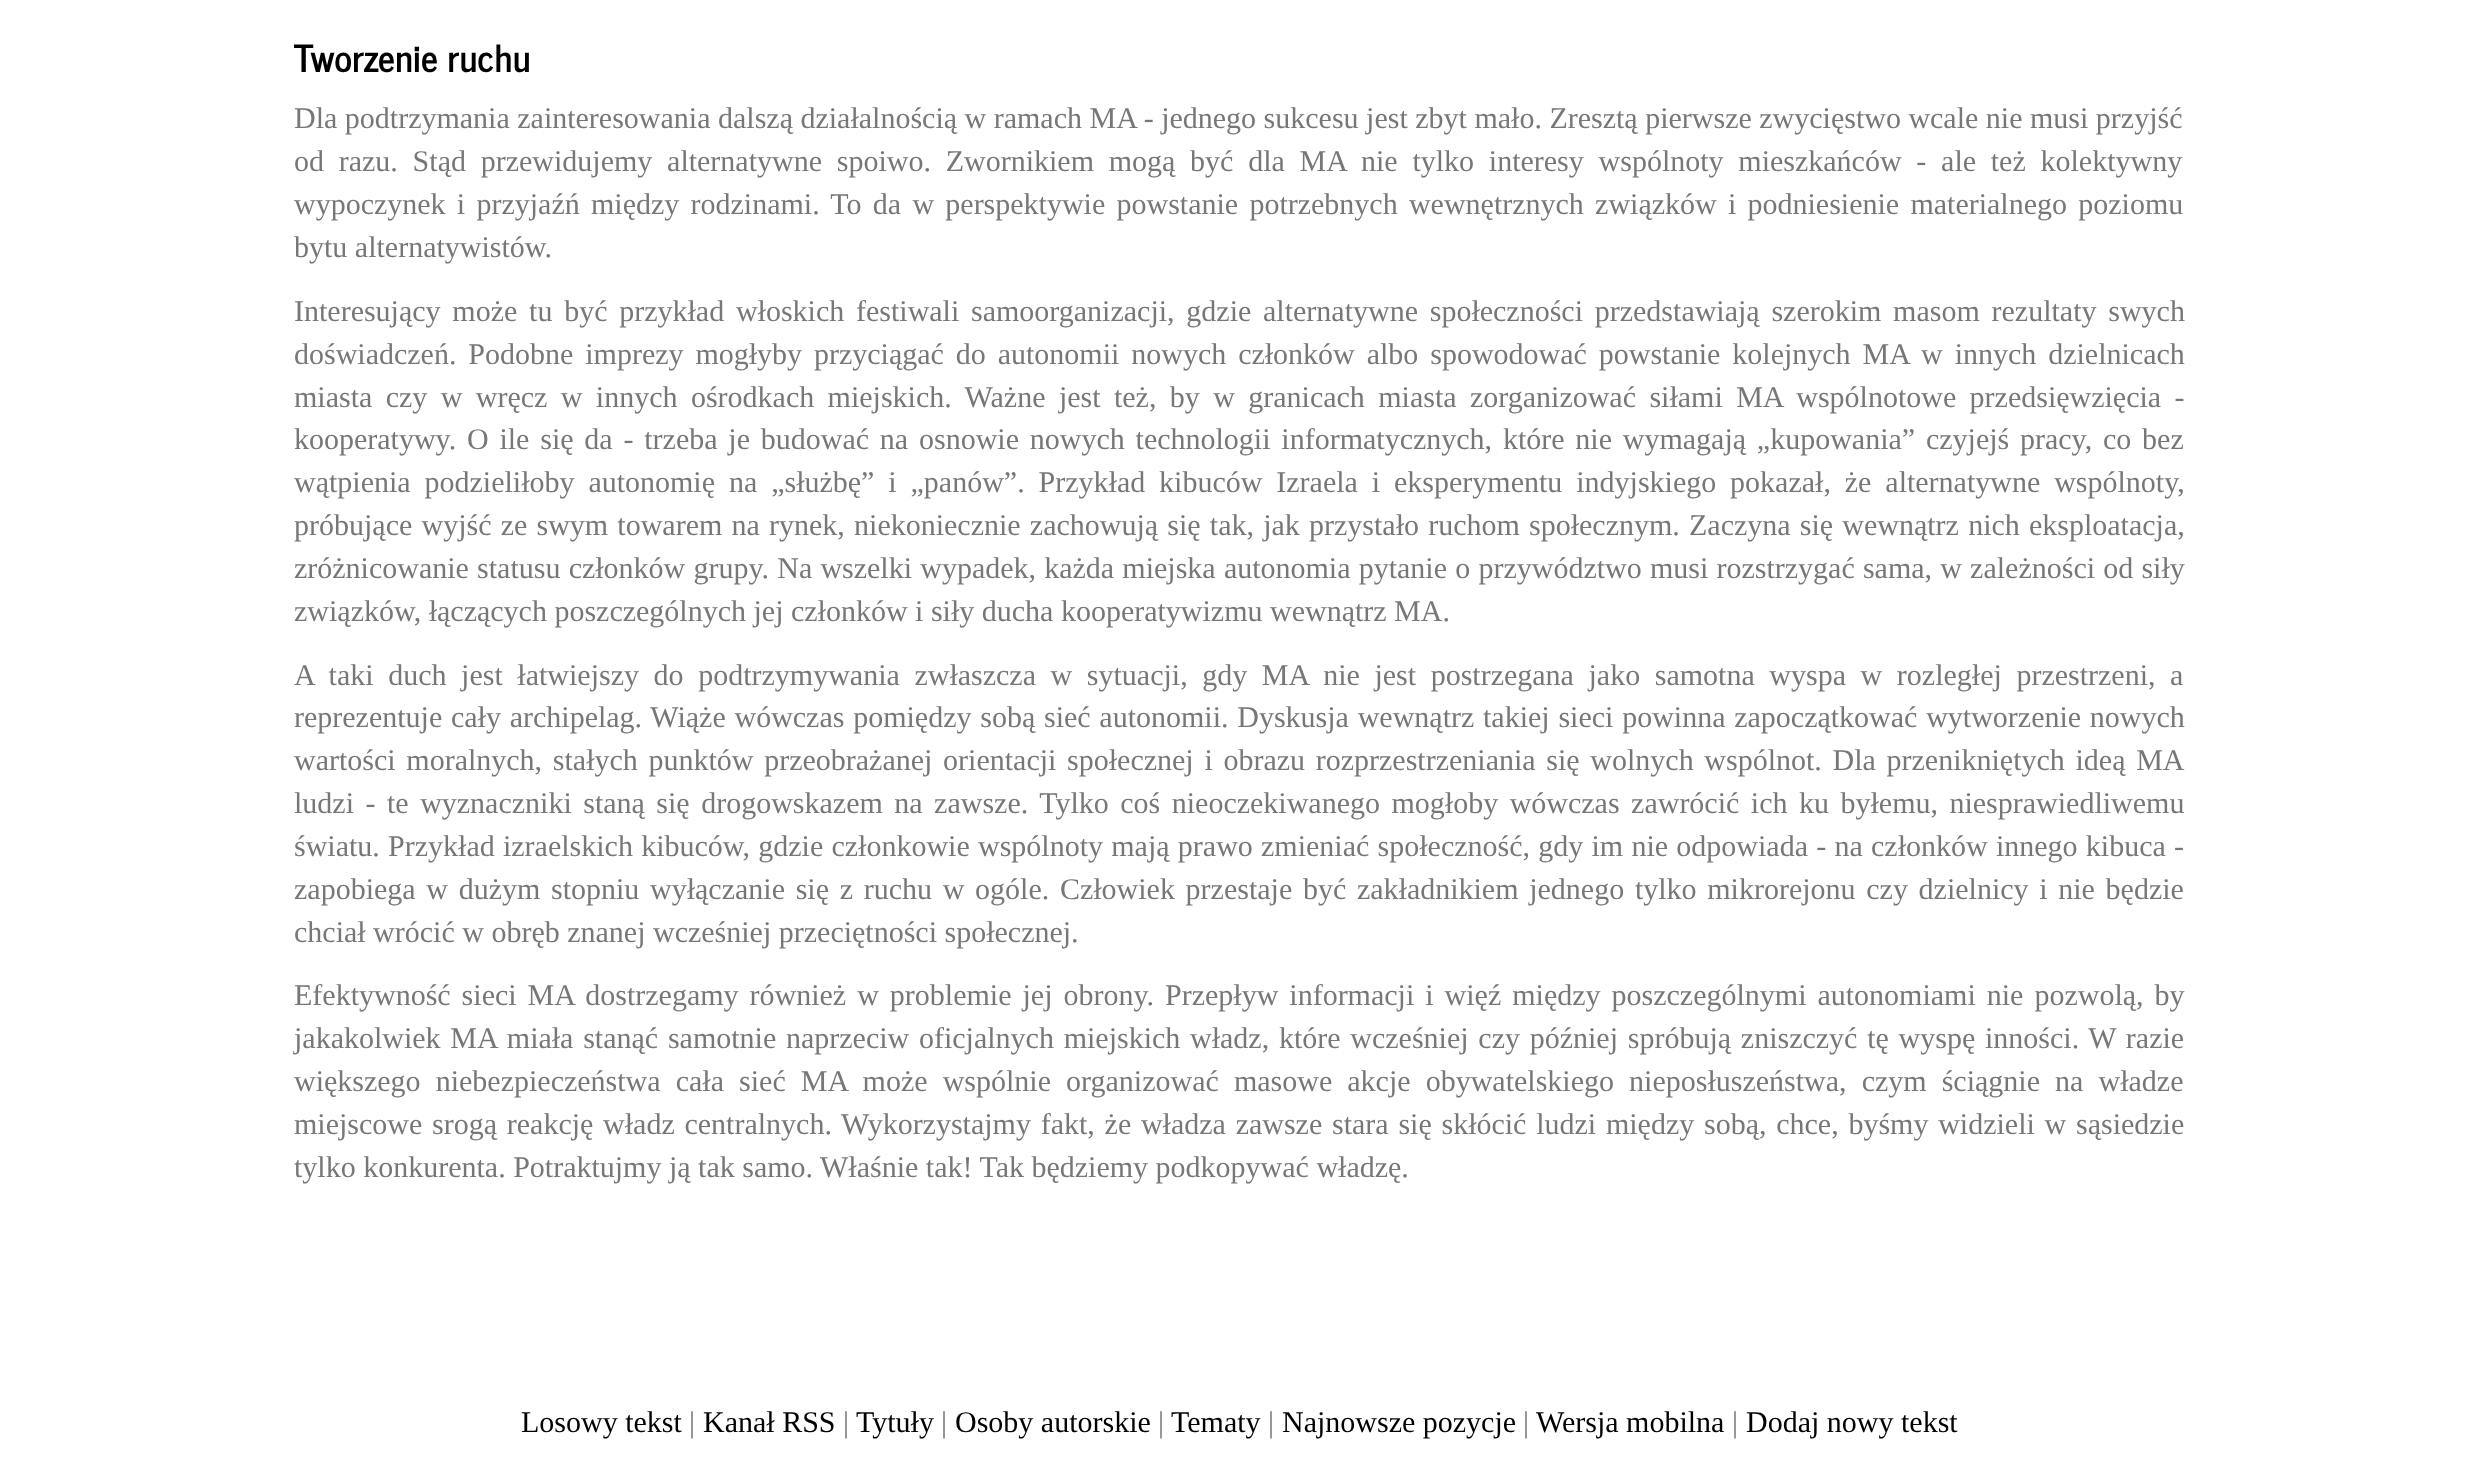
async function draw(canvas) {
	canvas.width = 2477;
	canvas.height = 1481;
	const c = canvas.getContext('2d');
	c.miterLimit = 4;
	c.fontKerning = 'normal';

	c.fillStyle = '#fff';
	c.fillRect(0, 0, 2477, 1481);
	c.font = 'bold 37.25px News Cycle';
	c.fillStyle = '#000';
	c.fillText('Tworzenie ruchu', 294, 72);
	c.font = '30px Liberation Serif';
	c.fillStyle = '#777';
	c.fillText('Dla podtrzymania zainteresowania dalszą działalnością w ramach MA - jednego sukcesu jest zbyt mało. Zresztą pierwsze zwycięstwo wcale nie musi przyjść', 294, 128);
	c.wordSpacing = '7.25px';
	c.fillText('od razu. Stąd przewidujemy alternatywne spoiwo. Zwornikiem mogą być dla MA nie tylko interesy wspólnoty mieszkańców - ale też kolektywny', 294, 171);
	c.wordSpacing = '3.75px';
	c.fillText('wypoczynek i przyjaźń między rodzinami. To da w perspektywie powstanie potrzebnych wewnętrznych związków i podniesienie materialnego poziomu', 294, 214);
	c.wordSpacing = '0px';
	c.fillText('bytu alternatywistów.', 294, 257);
	c.wordSpacing = '4.25px';
	c.fillText('Interesujący może tu być przykład włoskich festiwali samoorganizacji, gdzie alternatywne społeczności przedstawiają szerokim masom rezultaty swych', 294, 321);
	c.wordSpacing = '4.4px';
	c.fillText('doświadczeń. Podobne imprezy mogłyby przyciągać do autonomii nowych członków albo spowodować powstanie kolejnych MA w innych dzielnicach', 294, 364);
	c.wordSpacing = '5.9px';
	c.fillText('miasta czy w wręcz w innych ośrodkach miejskich. Ważne jest też, by w granicach miasta zorganizować siłami MA wspólnotowe przedsięwzięcia -', 294, 407);
	c.wordSpacing = '3.3px';
	c.fillText('kooperatywy. O ile się da - trzeba je budować na osnowie nowych technologii informatycznych, które nie wymagają „kupowania” czyjejś pracy, co bez', 294, 449);
	c.wordSpacing = '6.4px';
	c.fillText('wątpienia podzieliłoby autonomię na „służbę” i „panów”. Przykład kibuców Izraela i eksperymentu indyjskiego pokazał, że alternatywne wspólnoty,', 294, 492);
	c.wordSpacing = '1.7px';
	c.fillText('próbujące wyjść ze swym towarem na rynek, niekoniecznie zachowują się tak, jak przystało ruchom społecznym. Zaczyna się wewnątrz nich eksploatacja,', 294, 535);
	c.wordSpacing = '0.7px';
	c.fillText('zróżnicowanie statusu członków grupy. Na wszelki wypadek, każda miejska autonomia pytanie o przywództwo musi rozstrzygać sama, w zależności od siły', 294, 578);
	c.wordSpacing = '0px';
	c.fillText('związków, łączących poszczególnych jej członków i siły ducha kooperatywizmu wewnątrz MA.', 294, 621);
	c.wordSpacing = '7.1px';
	c.fillText('A taki duch jest łatwiejszy do podtrzymywania zwłaszcza w sytuacji, gdy MA nie jest postrzegana jako samotna wyspa w rozległej przestrzeni, a', 294, 685);
	c.wordSpacing = '1.25px';
	c.fillText('reprezentuje cały archipelag. Wiąże wówczas pomiędzy sobą sieć autonomii. Dyskusja wewnątrz takiej sieci powinna zapoczątkować wytworzenie nowych', 294, 727);
	c.wordSpacing = '3.2px';
	c.fillText('wartości moralnych, stałych punktów przeobrażanej orientacji społecznej i obrazu rozprzestrzeniania się wolnych wspólnot. Dla przenikniętych ideą MA', 294, 770);
	c.wordSpacing = '4px';
	c.fillText('ludzi - te wyznaczniki staną się drogowskazem na zawsze. Tylko coś nieoczekiwanego mogłoby wówczas zawrócić ich ku byłemu, niesprawiedliwemu', 294, 813);
	c.wordSpacing = '0.75px';
	c.fillText('światu. Przykład izraelskich kibuców, gdzie członkowie wspólnoty mają prawo zmieniać społeczność, gdy im nie odpowiada - na członków innego kibuca -', 294, 856);
	c.wordSpacing = '3.2px';
	c.fillText('zapobiega w dużym stopniu wyłączanie się z ruchu w ogóle. Człowiek przestaje być zakładnikiem jednego tylko mikrorejonu czy dzielnicy i nie będzie', 294, 899);
	c.wordSpacing = '0px';
	c.fillText('chciał wrócić w obręb znanej wcześniej przeciętności społecznej.', 294, 942);
	c.wordSpacing = '3.5px';
	c.fillText('Efektywność sieci MA dostrzegamy również w problemie jej obrony. Przepływ informacji i więź między poszczególnymi autonomiami nie pozwolą, by', 294, 1005);
	c.wordSpacing = '2.25px';
	c.fillText('jakakolwiek MA miała stanąć samotnie naprzeciw oficjalnych miejskich władz, które wcześniej czy później spróbują zniszczyć tę wyspę inności. W razie', 294, 1048);
	c.wordSpacing = '7.6px';
	c.fillText('większego niebezpieczeństwa cała sieć MA może wspólnie organizować masowe akcje obywatelskiego nieposłuszeństwa, czym ściągnie na władze', 294, 1091);
	c.wordSpacing = '2.25px';
	c.fillText('miejscowe srogą reakcję władz centralnych. Wykorzystajmy fakt, że władza zawsze stara się skłócić ludzi między sobą, chce, byśmy widzieli w sąsiedzie', 294, 1134);
	c.wordSpacing = '0px';
	c.fillText('tylko konkurenta. Potraktujmy ją tak samo. Właśnie tak! Tak będziemy podkopywać władzę.', 294, 1177);
	c.fillStyle = '#000';
	c.fillText('Losowy tekst', 521, 1432);
	c.fillStyle = '#777';
	c.fillText('|', 689, 1432);
	c.fillStyle = '#000';
	c.fillText('Kanał RSS', 703, 1432);
	c.fillStyle = '#777';
	c.fillText('|', 843, 1432);
	c.fillStyle = '#000';
	c.fillText('Tytuły', 856, 1432);
	c.fillStyle = '#777';
	c.fillText('|', 941, 1432);
	c.fillStyle = '#000';
	c.fillText('Osoby autorskie', 955, 1432);
	c.fillStyle = '#777';
	c.fillText('|', 1158, 1432);
	c.fillStyle = '#000';
	c.fillText('Tematy', 1171, 1432);
	c.fillStyle = '#777';
	c.fillText('|', 1268, 1432);
	c.fillStyle = '#000';
	c.fillText('Najnowsze pozycje', 1282, 1432);
	c.fillStyle = '#777';
	c.fillText('|', 1523, 1432);
	c.fillStyle = '#000';
	c.fillText('Wersja mobilna', 1536, 1432);
	c.fillStyle = '#777';
	c.fillText('|', 1732, 1432);
	c.fillStyle = '#000';
	c.fillText('Dodaj nowy tekst', 1746, 1432);
}

draw(document.querySelector('canvas'));
